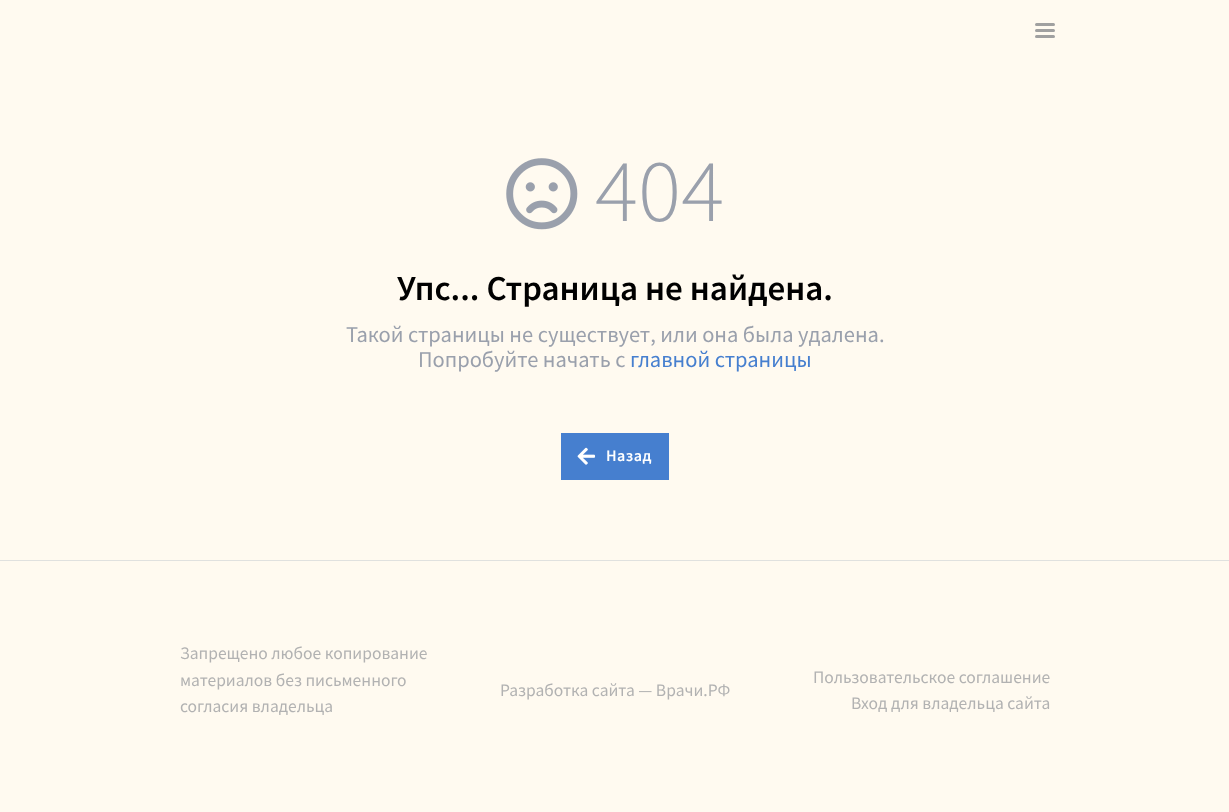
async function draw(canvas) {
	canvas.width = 1229;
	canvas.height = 812;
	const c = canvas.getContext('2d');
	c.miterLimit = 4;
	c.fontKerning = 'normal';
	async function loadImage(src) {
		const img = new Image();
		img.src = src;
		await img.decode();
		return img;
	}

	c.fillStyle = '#fffaf0';
	c.fillRect(0, 0, 1229, 812);
	c.fillStyle = '#a0a0a0';
	c.beginPath();
	c.roundRect(1035, 23, 20, 3, 1.5);
	c.fill();
	c.beginPath();
	c.roundRect(1035, 35, 20, 3, 1.5);
	c.fill();
	c.beginPath();
	c.roundRect(1035, 29, 20, 3, 1.5);
	c.fill();
	c.drawImage(await loadImage('img1.png'), 506, 158, 72, 72);
	c.font = '300 90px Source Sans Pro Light';
	c.fillStyle = '#9aa0ac';
	c.fillText('404', 595, 221);
	c.font = '600 35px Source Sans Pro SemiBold';
	c.fillStyle = '#000';
	c.fillText('Упс... Страница не найдена.', 397, 300);
	c.font = '22.5px Source Sans Pro';
	c.fillStyle = '#9aa0ac';
	c.fillText('Такой страницы не существует, или она была удалена.', 346, 342);
	c.fillText('Попробуйте начать с', 418, 367);
	c.fillStyle = '#467fcf';
	c.fillText('главной страницы', 630, 367);
	c.fillRect(561, 433, 108, 47);
	c.drawImage(await loadImage('img2.png'), 577, 447, 19, 18);
	c.letterSpacing = '0.5px';
	c.font = '600 16px Source Sans Pro SemiBold';
	c.fillStyle = '#fff';
	c.fillText('Назад', 606, 461);
	c.fillStyle = '#e0e1df';
	c.fillRect(0, 560, 1229, 1);
	c.letterSpacing = '0px';
	c.font = '17.5px Source Sans Pro';
	c.fillStyle = '#b2b2b2';
	for (const [text, x, y] of [
		['Запрещено любое копирование', 180, 659],
		['материалов без письменного', 180, 686],
		['согласия владельца', 180, 712],
		['Разработка сайта — Врачи.РФ', 500, 696],
		['Пользовательское соглашение', 813, 683],
		['Вход для владельца сайта', 851, 709],
	]) {
		c.fillText(text, x, y);
	}
}

draw(document.querySelector('canvas'));
